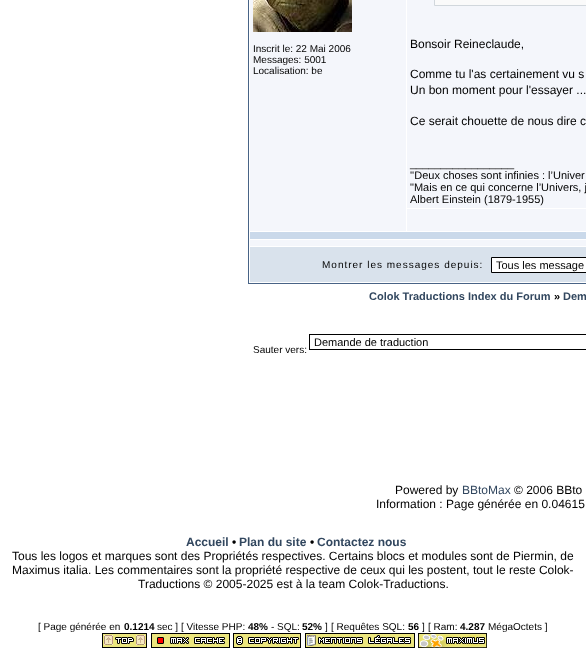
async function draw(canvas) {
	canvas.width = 586;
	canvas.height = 659;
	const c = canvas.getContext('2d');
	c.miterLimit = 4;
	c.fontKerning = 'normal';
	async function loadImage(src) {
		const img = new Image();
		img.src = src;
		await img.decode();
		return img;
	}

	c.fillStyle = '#fff';
	c.fillRect(0, 0, 586, 659);
	c.strokeStyle = '#486386';
	c.strokeRect(248.5, -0.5, 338, 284);
	c.fillStyle = '#f4f6fb';
	c.fillRect(250, 0, 156, 231);
	c.drawImage(await loadImage('img1.png'), 253, 0, 99, 32);
	c.font = '10px Liberation Sans';
	c.fillStyle = '#000';
	for (const [text, x, y] of [
		['Inscrit le: 22 Mai 2006', 253, 52],
		['Messages: 5001', 253, 63],
		['Localisation: be', 253, 74],
	]) {
		c.fillText(text, x, y);
	}
	c.fillStyle = '#f4f6fb';
	c.fillRect(407, 0, 179, 208);
	c.fillStyle = '#fafafa';
	c.beginPath();
	c.rect(434.5, -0.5, 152, 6);
	c.fill();
	c.strokeStyle = '#d1d7dc';
	c.stroke();
	c.font = '12px Liberation Sans';
	c.fillStyle = '#000';
	for (const [text, x, y] of [
		['Bonsoir Reineclaude,', 410, 48],
		['Comme tu l\'as certainement vu s', 410, 78],
		['Un bon moment pour l\'essayer ...', 410, 94],
		['Ce serait chouette de nous dire c', 410, 125],
	]) {
		c.fillText(text, x, y);
	}
	c.font = '11px Liberation Sans';
	for (const [text, x, y] of [
		['_________________', 410, 167],
		['\'\'Deux choses sont infinies : l’Univer', 410, 179],
		['"Mais en ce qui concerne l’Univers, j', 410, 191],
		['Albert Einstein (1879-1955)', 410, 203],
	]) {
		c.fillText(text, x, y);
	}
	for (const [x, y, w, h, color] of [
		[407, 209, 179, 22, '#f4f6fb'],
		[250, 232, 336, 7, '#cad9ea'],
		[250, 240, 336, 6, '#f4f6fb'],
		[250, 247, 336, 35, '#d9e2ec'],
	]) {
		c.fillStyle = color;
		c.fillRect(x, y, w, h);
	}
	c.letterSpacing = '1px';
	c.font = '10px Liberation Sans';
	c.fillStyle = '#000';
	c.fillText('Montrer les messages depuis:', 322, 268);
	c.fillStyle = '#fff';
	c.beginPath();
	c.rect(491.5, 257.5, 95, 15);
	c.fill();
	c.strokeStyle = '#000';
	c.stroke();
	c.letterSpacing = '0px';
	c.font = '11px Liberation Sans';
	c.fillStyle = '#000';
	c.fillText('Tous les message', 496, 269);
	c.font = 'bold 11px Liberation Sans';
	c.fillStyle = '#32475f';
	c.fillText('Colok Traductions Index du Forum', 369, 300);
	c.fillStyle = '#000';
	c.fillText('»', 554, 300);
	c.fillStyle = '#32475f';
	c.fillText('Dem', 563, 300);
	c.strokeRect(309.5, 334.5, 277, 15);
	c.font = '11px Liberation Sans';
	c.fillStyle = '#000';
	c.fillText('Demande de traduction', 314, 346);
	c.font = '10px Liberation Sans';
	c.fillText('Sauter vers:', 253, 353);
	c.font = '12px Liberation Sans';
	c.fillText('Powered by', 395, 494);
	c.fillStyle = '#32475f';
	c.fillText('BBtoMax', 462, 494);
	c.fillStyle = '#000';
	c.fillText('© 2006 BBto', 514, 494);
	c.fillText('Information : Page générée en 0.04615', 376, 508);
	c.font = 'bold 12px Liberation Sans';
	c.fillStyle = '#32475f';
	c.fillText('Accueil', 186, 546);
	c.fillStyle = '#000';
	c.fillText('•', 232, 546);
	c.fillStyle = '#32475f';
	c.fillText('Plan du site', 239, 546);
	c.fillStyle = '#000';
	c.fillText('•', 310, 546);
	c.fillStyle = '#32475f';
	c.fillText('Contactez nous', 317, 546);
	c.font = '12px Liberation Sans';
	c.fillStyle = '#000';
	for (const [text, x, y] of [
		['Tous les logos et marques sont des Propriétés respectives. Certains blocs et modules sont de Piermin, de', 12, 560],
		['Maximus italia. Les commentaires sont la propriété respective de ceux qui les postent, tout le reste Colok-', 12, 574],
		['Traductions © 2005-2025 est à la team Colok-Traductions.', 138, 588],
	]) {
		c.fillText(text, x, y);
	}
	c.font = '10px Liberation Sans';
	c.fillText('[ Page générée en', 38, 630);
	c.font = 'bold 10px Liberation Sans';
	c.fillText('0.1214', 124, 630);
	c.font = '10px Liberation Sans';
	c.fillText('sec ] [ Vitesse PHP:', 157, 630);
	c.font = 'bold 10px Liberation Sans';
	c.fillText('48%', 248, 630);
	c.font = '10px Liberation Sans';
	c.fillText('- SQL:', 271, 630);
	c.font = 'bold 10px Liberation Sans';
	c.fillText('52%', 302, 630);
	c.font = '10px Liberation Sans';
	c.fillText(']', 325, 630);
	c.fillText('[ Requêtes SQL:', 331, 630);
	c.font = 'bold 10px Liberation Sans';
	c.fillText('56', 408, 630);
	c.font = '10px Liberation Sans';
	c.fillText(']', 422, 630);
	c.fillText('[ Ram:', 428, 630);
	c.font = 'bold 10px Liberation Sans';
	c.fillText('4.287', 460, 630);
	c.font = '10px Liberation Sans';
	c.fillText('MégaOctets ]', 488, 630);
	c.drawImage(await loadImage('img2.png'), 102, 633, 45, 15);
	c.drawImage(await loadImage('img3.png'), 151, 633, 79, 15);
	c.drawImage(await loadImage('img4.png'), 233, 633, 68, 15);
	c.drawImage(await loadImage('img5.png'), 305, 633, 110, 15);
	c.drawImage(await loadImage('img6.png'), 418, 633, 69, 15);
}

draw(document.querySelector('canvas'));
